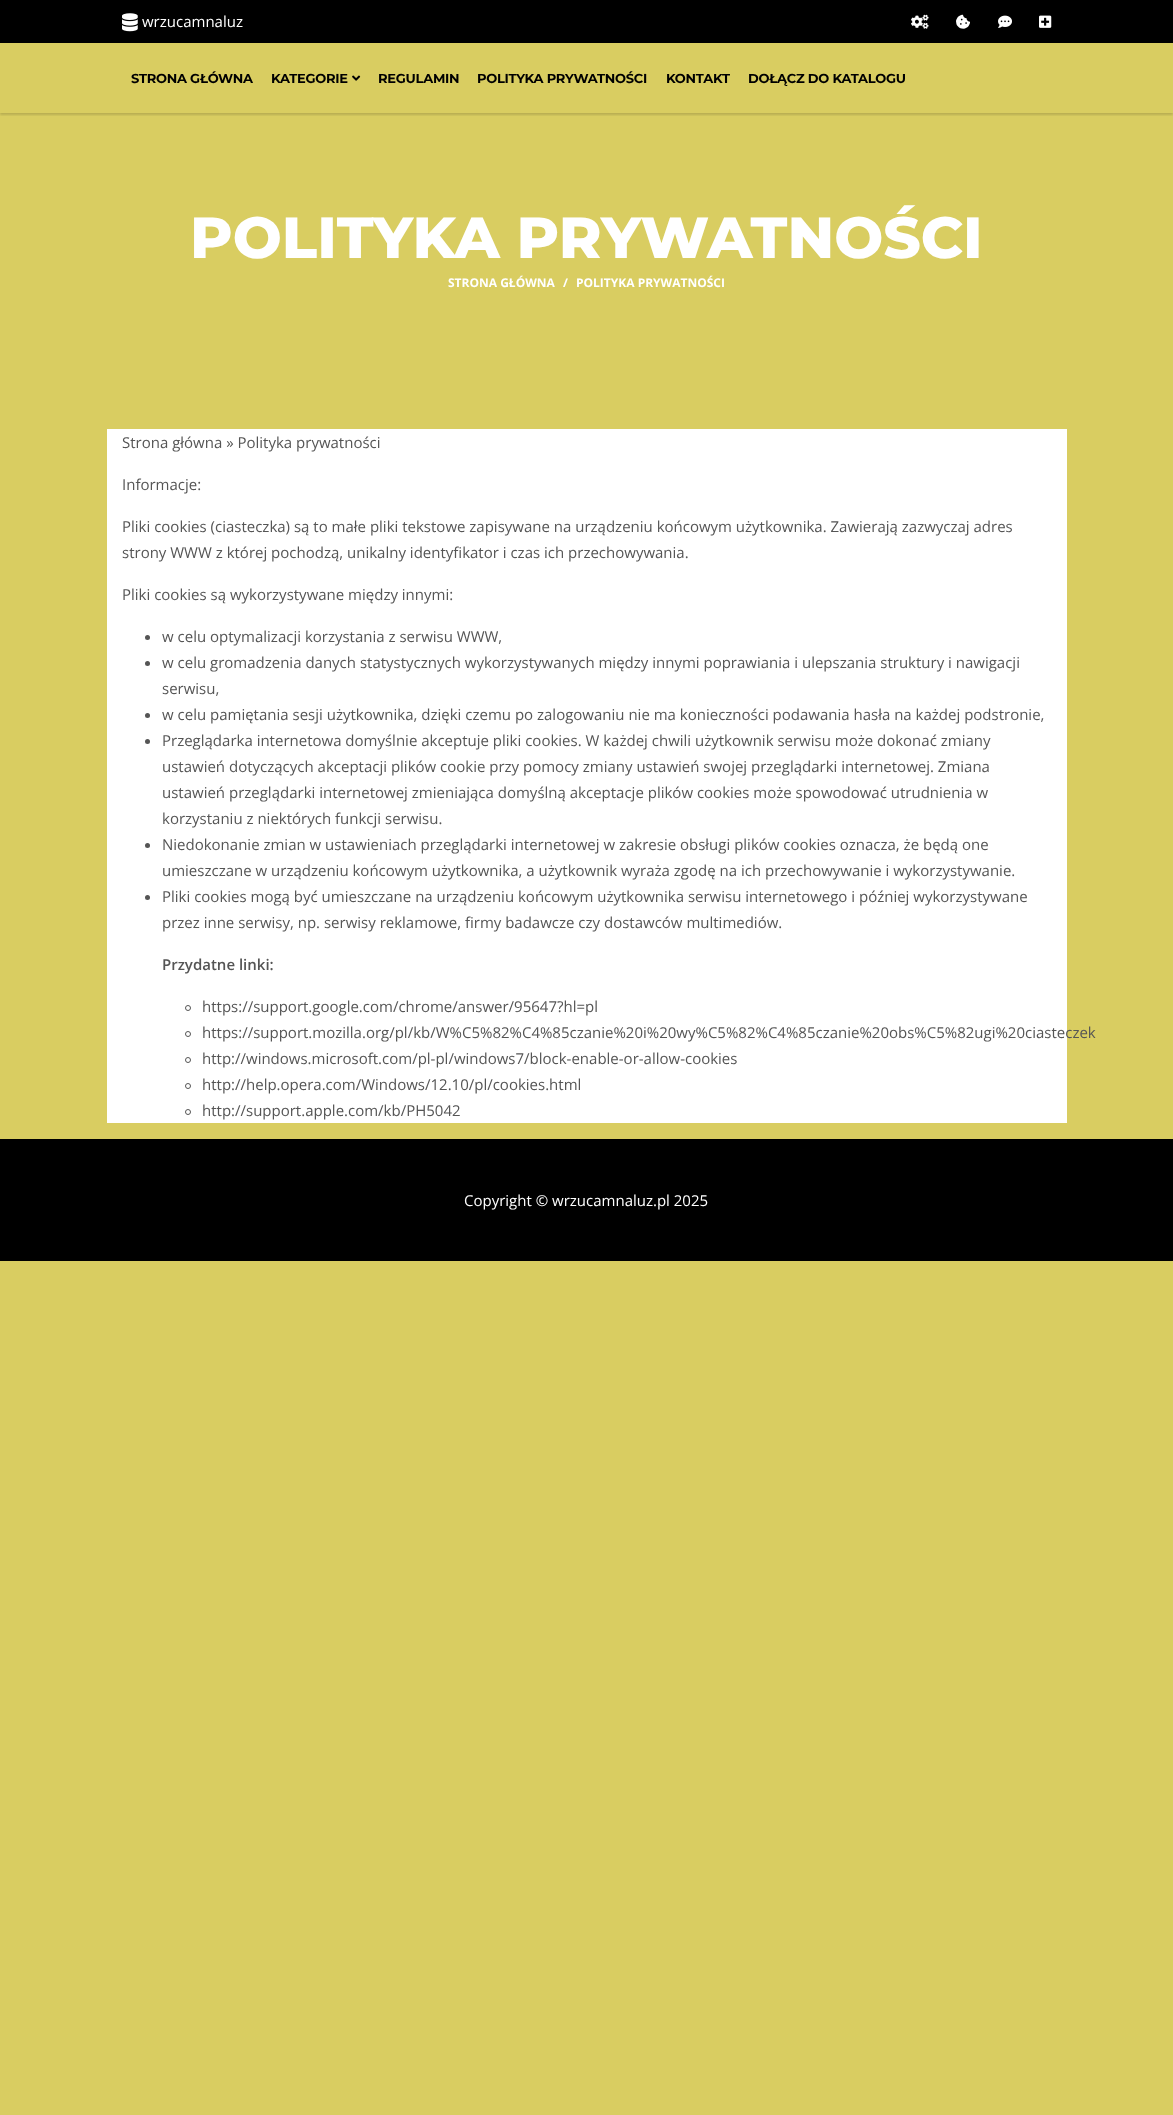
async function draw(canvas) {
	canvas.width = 1173;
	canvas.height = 2115;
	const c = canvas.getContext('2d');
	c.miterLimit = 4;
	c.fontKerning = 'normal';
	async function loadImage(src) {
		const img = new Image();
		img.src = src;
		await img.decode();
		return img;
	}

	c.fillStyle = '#d9cd61';
	c.fillRect(0, 0, 1173, 2115);
	c.save();
	c.beginPath();
	c.rect(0, 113, 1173, 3);
	c.clip();
	c.fillStyle = '#00000026';
	c.filter = 'blur(1px)';
	c.beginPath();
	c.rect(0, 45, 1173, 70);
	c.fill();
	c.filter = 'none';
	c.restore();
	c.fillStyle = '#000';
	c.fillRect(0, 0, 1173, 43);
	c.drawImage(await loadImage('img1.png'), 122, 13, 16, 19);
	c.font = '15px Open Sans';
	c.fillStyle = '#fff';
	c.fillText('wrzucamnaluz', 142, 27);
	c.drawImage(await loadImage('img2.png'), 911, 14, 18, 15);
	c.drawImage(await loadImage('img3.png'), 956, 14, 14, 15);
	c.drawImage(await loadImage('img4.png'), 998, 15, 14, 13);
	c.drawImage(await loadImage('img5.png'), 1039, 15, 13, 13);
	c.letterSpacing = '-0.25px';
	c.font = 'bold 13px Montserrat';
	c.fillStyle = '#000';
	c.fillText('STRONA GŁÓWNA', 131, 83);
	c.fillText('KATEGORIE', 271, 83);
	c.drawImage(await loadImage('img6.png'), 352, 75, 9, 6);
	for (const [text, x, y] of [
		['REGULAMIN', 378, 83],
		['POLITYKA PRYWATNOŚCI', 477, 83],
		['KONTAKT', 666, 83],
		['DOŁĄCZ DO KATALOGU', 748, 83],
	]) {
		c.fillText(text, x, y);
	}
	c.letterSpacing = '0px';
	c.font = '800 58px Montserrat';
	c.fillStyle = '#fff';
	c.fillText('POLITYKA PRYWATNOŚCI', 190, 258);
	c.font = 'bold 12px Open Sans';
	for (const [text, x, y] of [
		['STRONA GŁÓWNA', 448, 287],
		['/', 563, 287],
		['POLITYKA PRYWATNOŚCI', 576, 287],
	]) {
		c.fillText(text, x, y);
	}
	c.fillRect(107, 429, 960, 694);
	c.font = '15px Open Sans';
	c.fillStyle = '#555';
	for (const [text, x, y] of [
		['Strona główna » Polityka prywatności', 122, 448],
		['Informacje:', 122, 490],
		['Pliki cookies (ciasteczka) są to małe pliki tekstowe zapisywane na urządzeniu końcowym użytkownika. Zawierają zazwyczaj adres', 122, 532],
		['strony WWW z której pochodzą, unikalny identyfikator i czas ich przechowywania.', 122, 558],
		['Pliki cookies są wykorzystywane między innymi:', 122, 600],
	]) {
		c.fillText(text, x, y);
	}
	c.beginPath();
	c.arc(147.5, 637.5, 2.5, 0, 2 * Math.PI);
	c.fill();
	c.fillText('w celu optymalizacji korzystania z serwisu WWW,', 162, 642);
	c.beginPath();
	c.arc(147.5, 663.5, 2.5, 0, 2 * Math.PI);
	c.fill();
	c.fillText('w celu gromadzenia danych statystycznych wykorzystywanych między innymi poprawiania i ulepszania struktury i nawigacji', 162, 668);
	c.fillText('serwisu,', 162, 694);
	c.beginPath();
	c.arc(147.5, 715.5, 2.5, 0, 2 * Math.PI);
	c.fill();
	c.fillText('w celu pamiętania sesji użytkownika, dzięki czemu po zalogowaniu nie ma konieczności podawania hasła na każdej podstronie,', 162, 720);
	c.beginPath();
	c.arc(147.5, 741.5, 2.5, 0, 2 * Math.PI);
	c.fill();
	for (const [text, x, y] of [
		['Przeglądarka internetowa domyślnie akceptuje pliki cookies. W każdej chwili użytkownik serwisu może dokonać zmiany', 162, 746],
		['ustawień dotyczących akceptacji plików cookie przy pomocy zmiany ustawień swojej przeglądarki internetowej. Zmiana', 162, 772],
		['ustawień przeglądarki internetowej zmieniająca domyślną akceptacje plików cookies może spowodować utrudnienia w', 162, 798],
		['korzystaniu z niektórych funkcji serwisu.', 162, 824],
	]) {
		c.fillText(text, x, y);
	}
	c.beginPath();
	c.arc(147.5, 845.5, 2.5, 0, 2 * Math.PI);
	c.fill();
	c.fillText('Niedokonanie zmian w ustawieniach przeglądarki internetowej w zakresie obsługi plików cookies oznacza, że będą one', 162, 850);
	c.fillText('umieszczane w urządzeniu końcowym użytkownika, a użytkownik wyraża zgodę na ich przechowywanie i wykorzystywanie.', 162, 876);
	c.beginPath();
	c.arc(147.5, 897.5, 2.5, 0, 2 * Math.PI);
	c.fill();
	c.fillText('Pliki cookies mogą być umieszczane na urządzeniu końcowym użytkownika serwisu internetowego i później wykorzystywane', 162, 902);
	c.fillText('przez inne serwisy, np. serwisy reklamowe, firmy badawcze czy dostawców multimediów.', 162, 928);
	c.font = '600 15px Open Sans';
	c.fillText('Przydatne linki:', 162, 970);
	c.beginPath();
	c.arc(188, 1008, 2.5, 0, 2 * Math.PI);
	c.strokeStyle = '#555';
	c.stroke();
	c.font = '15px Open Sans';
	c.fillText('https://support.google.com/chrome/answer/95647?hl=pl', 202, 1012);
	c.beginPath();
	c.arc(188, 1034, 2.5, 0, 2 * Math.PI);
	c.stroke();
	c.fillText('https://support.mozilla.org/pl/kb/W%C5%82%C4%85czanie%20i%20wy%C5%82%C4%85czanie%20obs%C5%82ugi%20ciasteczek', 202, 1038);
	c.beginPath();
	c.arc(188, 1060, 2.5, 0, 2 * Math.PI);
	c.stroke();
	c.fillText('http://windows.microsoft.com/pl-pl/windows7/block-enable-or-allow-cookies', 202, 1064);
	c.beginPath();
	c.arc(188, 1086, 2.5, 0, 2 * Math.PI);
	c.stroke();
	c.fillText('http://help.opera.com/Windows/12.10/pl/cookies.html', 202, 1090);
	c.beginPath();
	c.arc(188, 1112, 2.5, 0, 2 * Math.PI);
	c.stroke();
	c.fillText('http://support.apple.com/kb/PH5042', 202, 1116);
	c.fillStyle = '#000';
	c.fillRect(0, 1139, 1173, 122);
	c.fillStyle = '#fff';
	c.fillText('Copyright © wrzucamnaluz.pl 2025', 464, 1206);
}

draw(document.querySelector('canvas'));
